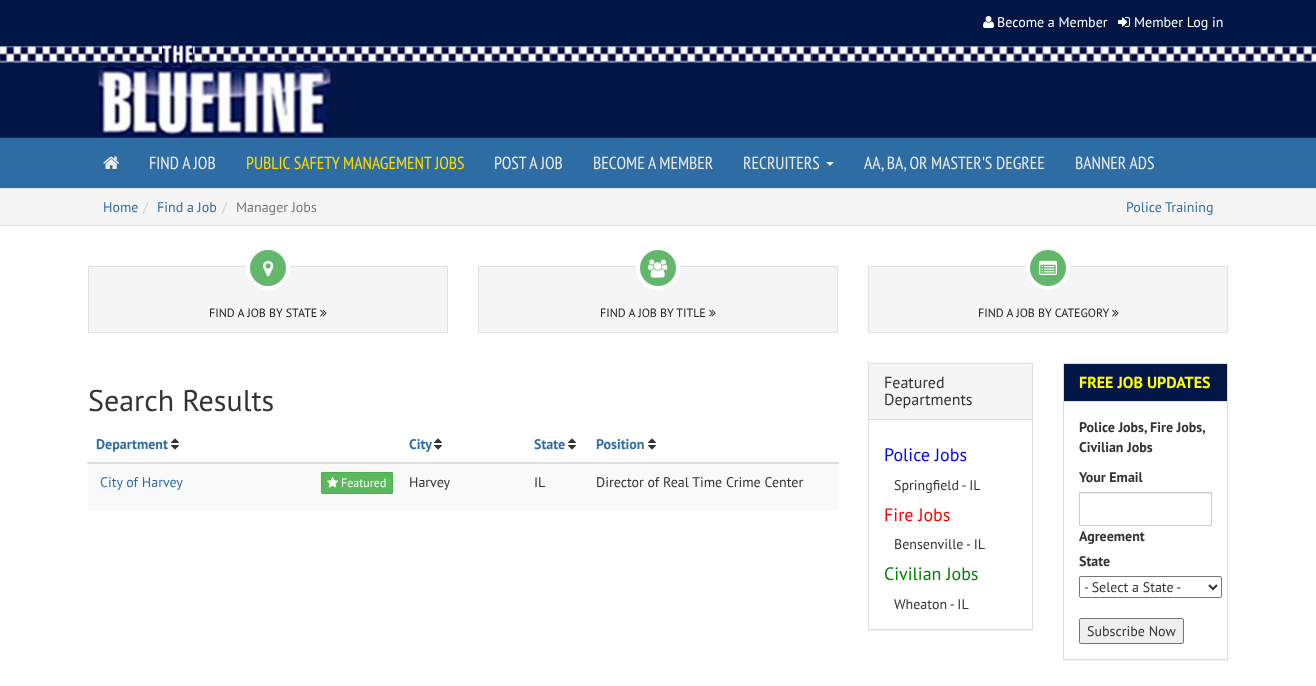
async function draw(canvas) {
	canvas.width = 1316;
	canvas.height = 686;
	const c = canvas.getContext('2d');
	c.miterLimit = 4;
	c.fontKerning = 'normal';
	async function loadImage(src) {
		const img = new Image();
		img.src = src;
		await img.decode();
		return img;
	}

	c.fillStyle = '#fff';
	c.fillRect(0, 0, 1316, 686);
	c.fillStyle = '#021746';
	c.fillRect(0, 0, 1316, 42);
	c.drawImage(await loadImage('img1.png'), 983, 16, 11, 12);
	c.font = '14px PT Sans';
	c.fillStyle = '#fff';
	c.fillText('Become a Member', 997, 27);
	c.drawImage(await loadImage('img2.png'), 1118, 17, 12, 10);
	c.fillText('Member Log in', 1134, 27);
	c.drawImage(await loadImage('img3.png'), 0, 42, 1316, 24);
	c.drawImage(await loadImage('img4.png'), 162, 42, 31, 24);
	c.fillStyle = '#021746';
	c.fillRect(0, 66, 1316, 71);
	c.drawImage(await loadImage('img5.png'), 95, 66, 237, 71);
	for (const [x, y, w, h, color] of [
		[0, 138, 1316, 50, '#2e6da4'],
		[0, 137, 1316, 1, '#0f2b68'],
		[0, 188, 1316, 1, '#e0dcdc'],
	]) {
		c.fillStyle = color;
		c.fillRect(x, y, w, h);
	}
	c.drawImage(await loadImage('img6.png'), 103, 156, 16, 13);
	c.font = '17.5px PT Sans Narrow';
	c.fillStyle = '#eaeaea';
	c.fillText('FIND A JOB', 149, 169);
	c.fillStyle = '#ffdc00';
	c.fillText('PUBLIC SAFETY MANAGEMENT JOBS', 246, 169);
	c.fillStyle = '#eaeaea';
	for (const [text, x, y] of [
		['POST A JOB', 494, 169],
		['BECOME A MEMBER', 593, 169],
		['RECRUITERS', 743, 169],
	]) {
		c.fillText(text, x, y);
	}
	c.beginPath();
	c.moveTo(826, 162);
	c.lineTo(834, 162);
	c.lineTo(830, 166);
	c.closePath();
	c.fill();
	c.fillText('AA, BA, OR MASTER\'S DEGREE', 864, 169);
	c.fillText('BANNER ADS', 1075, 169);
	c.fillStyle = '#f5f5f5';
	c.fillRect(0, 189, 1316, 36);
	c.fillStyle = '#e0dcdc';
	c.fillRect(0, 225, 1316, 1);
	c.font = '14px PT Sans';
	c.fillStyle = '#2e6da4';
	c.fillText('Home', 103, 212);
	c.fillStyle = '#ccc';
	c.fillText('/', 143, 212);
	c.fillStyle = '#2e6da4';
	c.fillText('Find a Job', 157, 212);
	c.fillStyle = '#ccc';
	c.fillText('/', 222, 212);
	c.fillStyle = '#777';
	c.fillText('Manager Jobs', 236, 212);
	c.fillStyle = '#2e6da4';
	c.fillText('Police Training', 1126, 212);
	c.fillStyle = '#f5f5f5';
	c.beginPath();
	c.rect(88.5, 266.5, 359, 66);
	c.fill();
	c.strokeStyle = '#e0e0e0';
	c.stroke();
	c.fillStyle = '#63b76c';
	c.beginPath();
	c.arc(268, 268, 20, 0, 2 * Math.PI);
	c.fill();
	c.strokeStyle = '#fff';
	c.lineWidth = 4;
	c.stroke();
	c.drawImage(await loadImage('img7.png'), 263, 260, 11, 17);
	c.font = '12px PT Sans';
	c.fillStyle = '#222';
	c.fillText('FIND A JOB BY STATE', 209, 317);
	c.drawImage(await loadImage('img8.png'), 320, 309, 7, 8);
	c.fillStyle = '#f5f5f5';
	c.beginPath();
	c.rect(478.5, 266.5, 359, 66);
	c.fill();
	c.strokeStyle = '#e0e0e0';
	c.lineWidth = 1;
	c.stroke();
	c.fillStyle = '#63b76c';
	c.beginPath();
	c.arc(658, 268, 20, 0, 2 * Math.PI);
	c.fill();
	c.strokeStyle = '#fff';
	c.lineWidth = 4;
	c.stroke();
	c.drawImage(await loadImage('img9.png'), 648, 259, 20, 19);
	c.fillStyle = '#222';
	c.fillText('FIND A JOB BY TITLE', 600, 317);
	c.drawImage(await loadImage('img8.png'), 709, 309, 7, 8);
	c.fillStyle = '#f5f5f5';
	c.beginPath();
	c.rect(868.5, 266.5, 359, 66);
	c.fill();
	c.strokeStyle = '#e0e0e0';
	c.lineWidth = 1;
	c.stroke();
	c.fillStyle = '#63b76c';
	c.beginPath();
	c.arc(1048, 268, 20, 0, 2 * Math.PI);
	c.fill();
	c.strokeStyle = '#fff';
	c.lineWidth = 4;
	c.stroke();
	c.drawImage(await loadImage('img10.png'), 1039, 260, 18, 15);
	c.fillStyle = '#222';
	c.fillText('FIND A JOB BY CATEGORY', 978, 317);
	c.drawImage(await loadImage('img8.png'), 1112, 309, 7, 8);
	c.font = '30px PT Sans';
	c.fillStyle = '#333';
	c.fillText('Search Results', 88, 411);
	c.font = 'bold 14px PT Sans';
	c.fillStyle = '#2e6da4';
	c.fillText('Department', 96, 449);
	c.drawImage(await loadImage('img11.png'), 171, 438, 8, 12);
	c.fillText('City', 409, 449);
	c.drawImage(await loadImage('img11.png'), 434, 438, 8, 12);
	c.fillText('State', 534, 449);
	c.drawImage(await loadImage('img11.png'), 568, 438, 8, 12);
	c.fillStyle = '#ddd';
	c.fillRect(87, 462, 752, 2);
	c.fillStyle = '#2e6da4';
	c.fillText('Position', 596, 449);
	c.drawImage(await loadImage('img11.png'), 648, 438, 8, 12);
	c.fillStyle = '#f9f9f9';
	c.fillRect(88, 464, 750, 46);
	c.font = '14px PT Sans';
	c.fillStyle = '#2e6da4';
	c.fillText('City of Harvey', 100, 487);
	c.fillStyle = '#5cb85c';
	c.beginPath();
	c.roundRect(321.5, 472.5, 71, 21, 0.5);
	c.fill();
	c.strokeStyle = '#4cae4c';
	c.lineWidth = 1;
	c.stroke();
	c.drawImage(await loadImage('img12.png'), 327, 477, 11, 11);
	c.font = '12px PT Sans';
	c.fillStyle = '#fff';
	c.fillText('Featured', 341, 487);
	c.font = '14px PT Sans';
	c.fillStyle = '#333';
	for (const [text, x, y] of [
		['Harvey', 409, 487],
		['IL', 534, 487],
		['Director of Real Time Crime Center', 596, 487],
	]) {
		c.fillText(text, x, y);
	}
	c.save();
	c.beginPath();
	c.rect(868, 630, 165, 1);
	c.clip();
	c.fillStyle = '#0000000d';
	c.filter = 'blur(0.5px)';
	c.beginPath();
	c.rect(868, 364, 165, 267);
	c.fill();
	c.filter = 'none';
	c.restore();
	c.strokeStyle = '#ddd';
	c.strokeRect(868.5, 363.5, 164, 266);
	c.fillStyle = '#f5f5f5';
	c.beginPath();
	c.roundRect(869, 364, 163, 56, [3, 3, 0, 0]);
	c.fill();
	c.fillStyle = '#ddd';
	c.fillRect(869, 419, 163, 1);
	c.font = '16px PT Sans';
	c.fillStyle = '#333';
	c.fillText('Featured', 884, 388);
	c.fillText('Departments', 884, 405);
	c.font = '18px PT Sans';
	c.fillStyle = '#00f';
	c.fillText('Police Jobs', 884, 461);
	c.font = '14px PT Sans';
	c.fillStyle = '#333';
	c.fillText('Springfield - IL', 894, 490);
	c.font = '18px PT Sans';
	c.fillStyle = '#f00';
	c.fillText('Fire Jobs', 884, 521);
	c.font = '14px PT Sans';
	c.fillStyle = '#333';
	c.fillText('Bensenville - IL', 894, 549);
	c.font = '18px PT Sans';
	c.fillStyle = '#008000';
	c.fillText('Civilian Jobs', 884, 580);
	c.font = '14px PT Sans';
	c.fillStyle = '#333';
	c.fillText('Wheaton - IL', 894, 609);
	c.save();
	c.beginPath();
	c.rect(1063, 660, 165, 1);
	c.clip();
	c.fillStyle = '#0000000d';
	c.filter = 'blur(0.5px)';
	c.beginPath();
	c.rect(1063, 364, 165, 297);
	c.fill();
	c.filter = 'none';
	c.restore();
	c.strokeRect(1063.5, 363.5, 164, 296);
	c.fillStyle = '#021746';
	c.fillRect(1064, 364, 163, 37);
	c.fillStyle = '#ddd';
	c.fillRect(1064, 401, 163, 1);
	c.font = 'bold 16px PT Sans';
	c.fillStyle = '#ff0';
	c.fillText('FREE JOB UPDATES', 1079, 388);
	c.font = 'bold 14px PT Sans';
	c.fillStyle = '#333';
	for (const [text, x, y] of [
		['Police Jobs, Fire Jobs,', 1079, 432],
		['Civilian Jobs', 1079, 452],
		['Your Email', 1079, 482],
	]) {
		c.fillText(text, x, y);
	}
	c.fillStyle = '#ececec';
	c.fillRect(1080, 493, 131, 1);
	c.strokeStyle = '#ccc';
	c.strokeRect(1079.5, 492.5, 132, 33);
	c.fillStyle = '#333';
	c.fillText('Agreement', 1079, 541);
	c.fillText('State', 1079, 566);
	c.beginPath();
	c.roundRect(1079.5, 576.5, 142, 21, 1.5);
	c.strokeStyle = '#767676';
	c.stroke();
	c.beginPath();
	c.moveTo(1209, 585);
	c.lineTo(1213, 589);
	c.lineTo(1217, 585);
	c.strokeStyle = '#333';
	c.lineWidth = 2;
	c.stroke();
	c.font = '14px PT Sans';
	c.fillText('- Select a State -', 1084, 592);
	c.fillStyle = '#efefef';
	c.beginPath();
	c.roundRect(1079.5, 618.5, 104, 25, 1.5);
	c.fill();
	c.strokeStyle = '#767676';
	c.lineWidth = 1;
	c.stroke();
	c.fillStyle = '#333';
	c.fillText('Subscribe Now', 1087, 636);
}

draw(document.querySelector('canvas'));
